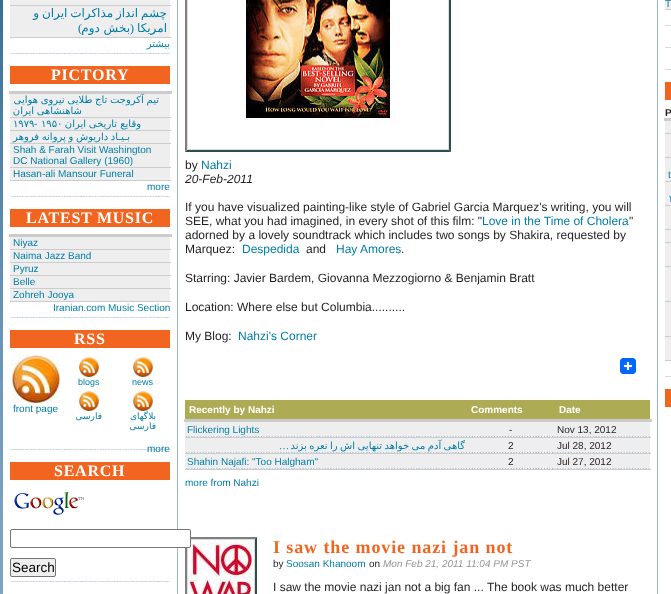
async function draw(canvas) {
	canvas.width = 671;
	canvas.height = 594;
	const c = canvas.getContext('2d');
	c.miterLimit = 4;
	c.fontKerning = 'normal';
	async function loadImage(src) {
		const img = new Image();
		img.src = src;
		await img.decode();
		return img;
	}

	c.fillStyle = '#fff';
	c.fillRect(0, 0, 671, 594);
	c.drawImage(await loadImage('img1.png'), 0, 0, 3, 594);
	c.fillStyle = '#9eb5cc';
	c.fillRect(177, 0, 1, 594);
	c.drawImage(await loadImage('img2.png'), 10, 53, 160, 1);
	for (const [x, y, w, h, color] of [
		[10, 0, 160, 5, '#eee'],
		[10, 5, 161, 1, '#ccc'],
		[10, 6, 160, 31, '#eee'],
		[10, 37, 161, 1, '#ccc'],
	]) {
		c.fillStyle = color;
		c.fillRect(x, y, w, h);
	}
	c.wordSpacing = '-1px';
	c.direction = 'rtl';
	c.font = '12px DejaVu Sans';
	c.fillStyle = '#007da6';
	c.fillText('چشم انداز مذاکرات ایران و', 167, 17);
	c.wordSpacing = '0px';
	c.font = '12px Liberation Serif';
	c.fillText(')', 82, 32);
	c.font = '12px DejaVu Sans';
	c.fillText('بخش دوم', 130, 32);
	c.font = '12px Liberation Serif';
	c.fillText('(', 134, 32);
	c.font = '12px DejaVu Sans';
	c.fillText('امریکا', 167, 32);
	c.font = '10px DejaVu Sans';
	c.fillText('بیشتر', 170, 47);
	c.drawImage(await loadImage('img2.png'), 10, 196, 160, 1);
	c.fillStyle = '#f26521';
	c.fillRect(10, 66, 160, 18);
	c.letterSpacing = '0.75px';
	c.direction = 'ltr';
	c.font = 'bold 16px Liberation Serif';
	c.fillStyle = '#fff';
	c.fillText('PICTORY', 51, 80);
	for (const [x, y, w, h, color] of [
		[9, 91, 163, 3, '#ccc'],
		[10, 94, 160, 23, '#eee'],
		[10, 117, 161, 1, '#ccc'],
	]) {
		c.fillStyle = color;
		c.fillRect(x, y, w, h);
	}
	c.letterSpacing = '0px';
	c.wordSpacing = '-0.5px';
	c.direction = 'rtl';
	c.font = '10px DejaVu Sans';
	c.fillStyle = '#007da6';
	c.fillText('تیم آکروجت تاج طلایی نیروی هوایی', 159, 103);
	c.fillText('شاهنشاهی ایران', 82, 114);
	c.fillStyle = '#eee';
	c.fillRect(10, 118, 160, 12);
	c.fillStyle = '#ccc';
	c.fillRect(10, 130, 161, 1);
	c.wordSpacing = '0px';
	c.direction = 'ltr';
	c.fillStyle = '#007da6';
	c.fillText('۱۹۷۹', 13, 127);
	c.font = '10px Liberation Sans';
	c.fillText('-', 34, 127);
	c.font = '10px DejaVu Sans';
	c.fillText('۱۹۵۰', 41, 127);
	c.direction = 'rtl';
	c.fillText('ایران', 86, 127);
	c.fillText('وقایع تاریخی', 141, 127);
	c.fillStyle = '#eee';
	c.fillRect(10, 131, 160, 12);
	c.fillStyle = '#ccc';
	c.fillRect(10, 143, 161, 1);
	c.wordSpacing = '-0.5px';
	c.fillStyle = '#007da6';
	c.fillText('بـیـاد داریوش و پروانه فروهر', 130, 140);
	c.fillStyle = '#eee';
	c.fillRect(10, 144, 160, 23);
	c.fillStyle = '#ccc';
	c.fillRect(10, 167, 161, 1);
	c.wordSpacing = '0px';
	c.direction = 'ltr';
	c.font = '10px Liberation Sans';
	c.fillStyle = '#007da6';
	c.fillText('Shah & Farah Visit Washington', 13, 153);
	c.fillText('DC National Gallery (1960)', 13, 164);
	c.fillStyle = '#eee';
	c.fillRect(10, 168, 160, 12);
	c.fillStyle = '#ccc';
	c.fillRect(10, 180, 161, 1);
	c.fillStyle = '#007da6';
	c.fillText('Hasan-ali Mansour Funeral', 13, 177);
	c.fillText('more', 147, 190);
	c.drawImage(await loadImage('img2.png'), 10, 317, 160, 1);
	c.fillStyle = '#f26521';
	c.fillRect(10, 209, 160, 18);
	c.letterSpacing = '0.75px';
	c.font = 'bold 16px Liberation Serif';
	c.fillStyle = '#fff';
	c.fillText('LATEST MUSIC', 26, 223);
	for (const [x, y, w, h, color] of [
		[9, 234, 163, 3, '#ccc'],
		[10, 237, 160, 12, '#eee'],
		[10, 249, 161, 1, '#ccc'],
	]) {
		c.fillStyle = color;
		c.fillRect(x, y, w, h);
	}
	c.letterSpacing = '0px';
	c.font = '10px Liberation Sans';
	c.fillStyle = '#007da6';
	c.fillText('Niyaz', 13, 246);
	c.fillStyle = '#eee';
	c.fillRect(10, 250, 160, 12);
	c.fillStyle = '#ccc';
	c.fillRect(10, 262, 161, 1);
	c.fillStyle = '#007da6';
	c.fillText('Naima Jazz Band', 13, 259);
	c.fillStyle = '#eee';
	c.fillRect(10, 263, 160, 12);
	c.fillStyle = '#ccc';
	c.fillRect(10, 275, 161, 1);
	c.fillStyle = '#007da6';
	c.fillText('Pyruz', 13, 272);
	c.fillStyle = '#eee';
	c.fillRect(10, 276, 160, 12);
	c.fillStyle = '#ccc';
	c.fillRect(10, 288, 161, 1);
	c.fillStyle = '#007da6';
	c.fillText('Belle', 13, 285);
	c.fillStyle = '#eee';
	c.fillRect(10, 289, 160, 12);
	c.fillStyle = '#ccc';
	c.fillRect(10, 301, 161, 1);
	c.fillStyle = '#007da6';
	c.fillText('Zohreh Jooya', 13, 298);
	c.fillText('Iranian.com Music Section', 53, 311);
	c.drawImage(await loadImage('img2.png'), 10, 449, 160, 1);
	c.fillStyle = '#f26521';
	c.fillRect(10, 330, 160, 18);
	c.letterSpacing = '0.75px';
	c.font = 'bold 16px Liberation Serif';
	c.fillStyle = '#fff';
	c.fillText('RSS', 74, 344);
	c.drawImage(await loadImage('img3.png'), 79, 357, 20, 20);
	c.letterSpacing = '0px';
	c.font = '9px Liberation Sans';
	c.fillStyle = '#007da6';
	c.fillText('blogs', 78, 385);
	c.drawImage(await loadImage('img4.png'), 133, 357, 20, 20);
	c.fillText('news', 132, 385);
	c.drawImage(await loadImage('img5.png'), 12, 355, 48, 48);
	c.font = '10px Liberation Sans';
	c.fillText('front page', 13, 412);
	c.drawImage(await loadImage('img6.png'), 79, 391, 20, 20);
	c.direction = 'rtl';
	c.font = '9px DejaVu Sans';
	c.fillText('فارسی', 102, 419);
	c.drawImage(await loadImage('img7.png'), 133, 391, 20, 20);
	c.fillText('بلاگهای', 156, 419);
	c.fillText('فارسی', 156, 429);
	c.direction = 'ltr';
	c.font = '10px Liberation Sans';
	c.fillText('more', 147, 452);
	c.drawImage(await loadImage('img2.png'), 10, 581, 160, 1);
	c.fillStyle = '#f26521';
	c.fillRect(10, 462, 160, 18);
	c.letterSpacing = '0.75px';
	c.font = 'bold 16px Liberation Serif';
	c.fillStyle = '#fff';
	c.fillText('SEARCH', 54, 476);
	c.drawImage(await loadImage('img8.png'), 14, 492, 70, 23);
	c.fillStyle = '#dcdcdc';
	c.fillRect(187, 537, 70, 57);
	c.fillStyle = '#808080';
	c.beginPath();
	c.moveTo(185, 537);
	c.lineTo(257, 537);
	c.lineTo(255, 539);
	c.lineTo(187, 539);
	c.closePath();
	c.fill();
	c.beginPath();
	c.moveTo(185, 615);
	c.lineTo(185, 537);
	c.lineTo(187, 539);
	c.lineTo(187, 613);
	c.closePath();
	c.fill();
	c.drawImage(await loadImage('img14.png'), 188, 540, 66, 54);
	c.fillStyle = '#fff';
	c.beginPath();
	c.roundRect(10.5, 529.5, 180, 18, 1.5);
	c.fill();
	c.strokeStyle = '#767676';
	c.stroke();
	c.fillStyle = '#efefef';
	c.beginPath();
	c.roundRect(10.5, 558.5, 45, 18, 1.5);
	c.fill();
	c.stroke();
	c.letterSpacing = '0px';
	c.font = '13.5px Liberation Sans';
	c.fillStyle = '#000';
	c.fillText('Search', 12, 572);
	c.fillStyle = '#9eb5cc';
	c.fillRect(657, 0, 1, 594);
	c.fillStyle = '#dcdcdc';
	c.fillRect(185, 0, 266, 152);
	c.fillStyle = '#2f4f4f';
	c.beginPath();
	c.moveTo(451, -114);
	c.lineTo(451, 152);
	c.lineTo(449, 150);
	c.lineTo(449, -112);
	c.closePath();
	c.fill();
	c.beginPath();
	c.moveTo(451, 152);
	c.lineTo(185, 152);
	c.lineTo(187, 150);
	c.lineTo(449, 150);
	c.closePath();
	c.fill();
	c.fillStyle = '#808080';
	c.beginPath();
	c.moveTo(185, 152);
	c.lineTo(185, -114);
	c.lineTo(187, -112);
	c.lineTo(187, 150);
	c.closePath();
	c.fill();
	c.drawImage(await loadImage('img9.png'), 188, 0, 260, 149);
	c.font = '12px Liberation Sans';
	c.fillStyle = '#221e1f';
	c.fillText('by', 185, 169);
	c.fillStyle = '#007da6';
	c.fillText('Nahzi', 201, 169);
	c.font = 'italic 12px Liberation Sans';
	c.fillStyle = '#221e1f';
	c.fillText('20-Feb-2011', 185, 183);
	c.font = '12px Liberation Sans';
	c.fillText('If you have visualized painting-like style of Gabriel Garcia Marquez\'s writing, you will', 185, 211);
	c.fillText('SEE, what you had imagined, in every shot of this film: "', 185, 225);
	c.fillStyle = '#007da6';
	c.fillText('Love in the Time of Cholera', 482, 225);
	c.fillStyle = '#221e1f';
	for (const [text, x, y] of [
		['"', 629, 225],
		['adorned by a lovely soundtrack which includes two songs by Shakira, requested by', 185, 239],
		['Marquez:', 185, 253],
	]) {
		c.fillText(text, x, y);
	}
	c.fillStyle = '#007da6';
	c.fillText('Despedida', 242, 253);
	c.fillStyle = '#221e1f';
	c.fillText('and', 306, 253);
	c.fillStyle = '#007da6';
	c.fillText('Hay Amores', 336, 253);
	c.fillStyle = '#221e1f';
	for (const [text, x, y] of [
		['.', 401, 253],
		['Starring: Javier Bardem, Giovanna Mezzogiorno & Benjamin Bratt', 185, 282],
		['Location: Where else but Columbia..........', 185, 311],
		['My Blog:', 185, 340],
	]) {
		c.fillText(text, x, y);
	}
	c.fillStyle = '#007da6';
	c.fillText('Nahzi\'s Corner', 238, 340);
	c.drawImage(await loadImage('img10.png'), 620, 358, 16, 16);
	c.fillStyle = '#adab53';
	c.fillRect(185, 400, 465, 19);
	c.font = 'bold 10px Liberation Sans';
	c.fillStyle = '#fff';
	c.fillText('Recently by Nahzi', 189, 413);
	c.fillText('Comments', 471, 413);
	c.fillStyle = '#ccc';
	c.fillRect(184, 419, 468, 3);
	c.fillStyle = '#fff';
	c.fillText('Date', 559, 413);
	c.fillStyle = '#eee';
	c.fillRect(185, 422, 465, 14);
	c.fillStyle = '#ccc';
	c.fillRect(185, 437, 466, 1);
	c.drawImage(await loadImage('img11.png'), 185, 436, 282, 1);
	c.font = '10px Liberation Sans';
	c.fillStyle = '#007da6';
	c.fillText('Flickering Lights', 187, 433);
	c.drawImage(await loadImage('img12.png'), 467, 436, 88, 1);
	c.fillStyle = '#221e1f';
	c.fillText('-', 509, 433);
	c.drawImage(await loadImage('img13.png'), 555, 436, 95, 1);
	c.fillText('Nov 13, 2012', 557, 433);
	c.fillStyle = '#eee';
	c.fillRect(185, 438, 465, 14);
	c.fillStyle = '#ccc';
	c.fillRect(185, 453, 466, 1);
	c.drawImage(await loadImage('img11.png'), 185, 452, 282, 1);
	c.direction = 'rtl';
	c.font = '10px Liberation Serif';
	c.fillStyle = '#007da6';
	c.fillText('…', 289, 449);
	c.wordSpacing = '-0.75px';
	c.font = '10px DejaVu Sans';
	c.fillText('گاهی آدم می خواهد تنهایی اش را نعره بزند', 465, 449);
	c.drawImage(await loadImage('img12.png'), 467, 452, 88, 1);
	c.wordSpacing = '0px';
	c.direction = 'ltr';
	c.font = '10px Liberation Sans';
	c.fillStyle = '#221e1f';
	c.fillText('2', 508, 449);
	c.drawImage(await loadImage('img13.png'), 555, 452, 95, 1);
	c.fillText('Jul 28, 2012', 557, 449);
	c.fillStyle = '#eee';
	c.fillRect(185, 454, 465, 14);
	c.fillStyle = '#ccc';
	c.fillRect(185, 469, 466, 1);
	c.drawImage(await loadImage('img11.png'), 185, 468, 282, 1);
	c.fillStyle = '#007da6';
	c.fillText('Shahin Najafi: "Too Halgham"', 187, 465);
	c.drawImage(await loadImage('img12.png'), 467, 468, 88, 1);
	c.fillStyle = '#221e1f';
	c.fillText('2', 508, 465);
	c.drawImage(await loadImage('img13.png'), 555, 468, 95, 1);
	c.fillText('Jul 27, 2012', 557, 465);
	c.fillStyle = '#007da6';
	c.fillText('more from Nahzi', 185, 486);
	c.fillStyle = '#2f4f4f';
	c.beginPath();
	c.moveTo(257, 537);
	c.lineTo(257, 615);
	c.lineTo(255, 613);
	c.lineTo(255, 539);
	c.closePath();
	c.fill();
	c.letterSpacing = '0.9px';
	c.font = 'bold 18px Liberation Serif';
	c.fillStyle = '#f26521';
	c.fillText('I saw the movie nazi jan not', 273, 553);
	c.letterSpacing = '0px';
	c.font = '10px Liberation Sans';
	c.fillStyle = '#221e1f';
	c.fillText('by', 273, 567);
	c.fillStyle = '#007da6';
	c.fillText('Soosan Khanoom', 286, 567);
	c.fillStyle = '#221e1f';
	c.fillText('on', 369, 567);
	c.font = 'italic 10px Liberation Sans';
	c.fillStyle = '#939698';
	c.fillText('Mon Feb 21, 2011 11:04 PM PST', 383, 567);
	c.font = '12px Liberation Sans';
	c.fillStyle = '#221e1f';
	c.fillText('I saw the movie nazi jan not a big fan ... The book was much better', 273, 591);
	c.drawImage(await loadImage('img15.png'), 665, 25, 6, 1);
	c.fillStyle = '#eee';
	c.fillRect(665, 0, 6, 10);
	c.fillStyle = '#ccc';
	c.fillRect(665, 9, 6, 1);
	c.font = '10px Liberation Sans';
	c.fillStyle = '#007da6';
	c.fillText('T', 665, 7);
	c.drawImage(await loadImage('img15.png'), 665, 47, 6, 1);
	c.drawImage(await loadImage('img15.png'), 665, 69, 6, 1);
	c.drawImage(await loadImage('img15.png'), 665, 376, 6, 1);
	for (const [x, y, w, h, color] of [
		[665, 82, 6, 18, '#f26521'],
		[665, 120, 6, 241, '#eee'],
		[664, 118, 7, 3, '#ccc'],
	]) {
		c.fillStyle = color;
		c.fillRect(x, y, w, h);
	}
	c.font = 'bold 10px Liberation Sans';
	c.fillStyle = '#221e1f';
	c.fillText('P', 665, 116);
	for (const [x, y, w, h, color] of [
		[665, 133, 6, 1, '#ccc'],
		[665, 157, 6, 1, '#ccc'],
		[665, 181, 6, 1, '#ccc'],
	]) {
		c.fillStyle = color;
		c.fillRect(x, y, w, h);
	}
	c.font = '10px Liberation Sans';
	c.fillStyle = '#007da6';
	c.fillText('t', 668, 178);
	c.fillStyle = '#ccc';
	c.fillRect(665, 205, 6, 1);
	c.font = '10px DejaVu Sans';
	c.fillStyle = '#007da6';
	c.fillText('۱', 668, 202);
	for (const [x, y, w, h, color] of [
		[665, 229, 6, 1, '#ccc'],
		[665, 242, 6, 1, '#ccc'],
		[665, 266, 6, 1, '#ccc'],
		[665, 301, 6, 1, '#ccc'],
		[665, 336, 6, 1, '#ccc'],
		[665, 360, 6, 1, '#ccc'],
		[665, 389, 6, 18, '#f26521'],
	]) {
		c.fillStyle = color;
		c.fillRect(x, y, w, h);
	}
}

draw(document.querySelector('canvas'));
